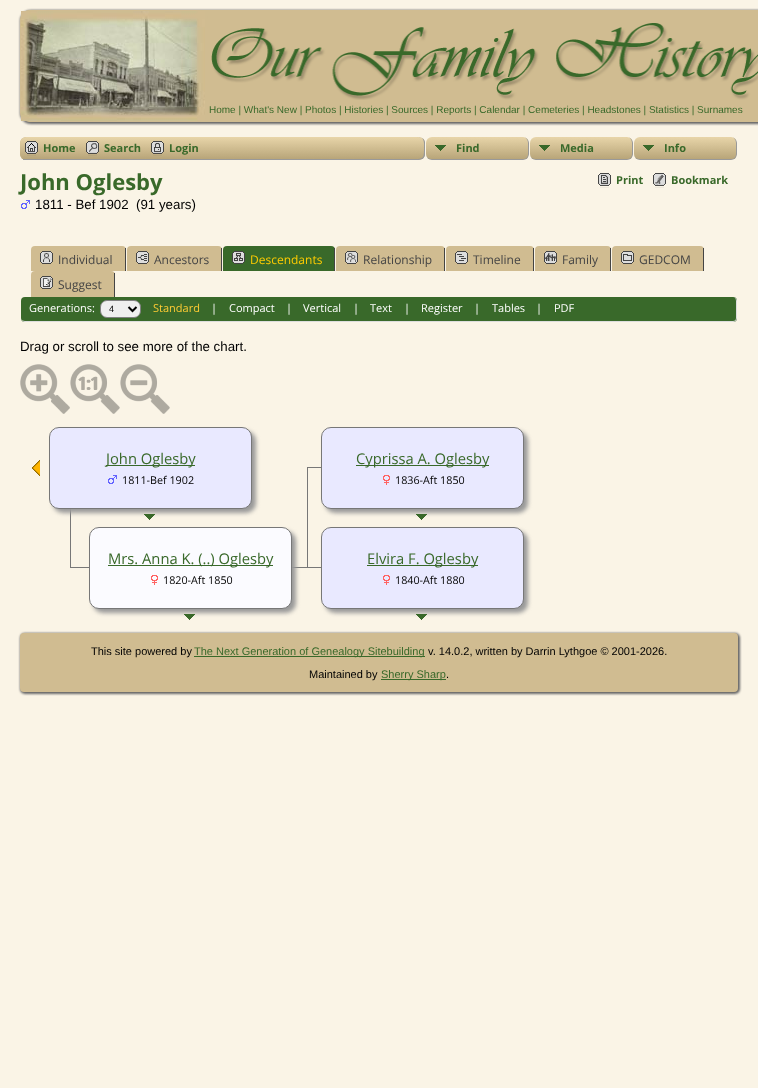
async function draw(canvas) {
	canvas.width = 758;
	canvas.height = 1088;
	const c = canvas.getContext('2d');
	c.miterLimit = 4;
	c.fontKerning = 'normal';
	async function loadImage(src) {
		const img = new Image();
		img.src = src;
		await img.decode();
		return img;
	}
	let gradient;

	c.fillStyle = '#faf4e6';
	c.fillRect(0, 0, 758, 1088);
	c.fillStyle = '#666';
	c.filter = 'blur(1px)';
	c.beginPath();
	c.roundRect(20, 10, 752, 114, 11);
	c.fill();
	c.filter = 'none';
	c.fillStyle = '#d0bc91';
	c.beginPath();
	c.roundRect(20, 10, 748, 112, 10);
	c.fill();
	c.beginPath();
	c.roundRect(20, 10, 188, 112, 10);
	c.fill();
	c.drawImage(await loadImage('img1.png'), 21, 11, 184, 110);
	c.drawImage(await loadImage('img2.png'), 211, 23, 547, 77);
	c.font = '10px Liberation Sans';
	c.fillStyle = '#39692a';
	c.fillText('Home | What\'s New | Photos | Histories | Sources | Reports | Calendar | Cemeteries | Headstones | Statistics | Surnames', 209, 113);
	c.fillStyle = '#d0bc91';
	c.beginPath();
	c.roundRect(20, 137, 718, 23, 6);
	c.fill();
	c.save();
	c.beginPath();
	c.roundRect(20, 137, 718, 23, 6);
	c.clip();
	gradient = c.createLinearGradient(379, 137, 379, 159);
	gradient.addColorStop(0, '#e8d5a9');
	gradient.addColorStop(1, '#b8a579');
	c.fillStyle = gradient;
	c.beginPath();
	c.roundRect(20, 137, 718, 22, [6, 6, 0, 0]);
	c.fill();
	c.restore();
	c.fillStyle = '#999';
	c.fillRect(23, 159, 391, 1);
	c.drawImage(await loadImage('img3.png'), 25, 141, 13, 15);
	c.font = 'bold 11px Open Sans';
	c.fillStyle = '#39692a';
	c.fillText('Home', 43, 152);
	c.drawImage(await loadImage('img4.png'), 86, 141, 13, 15);
	c.fillText('Search', 104, 152);
	c.drawImage(await loadImage('img5.png'), 151, 141, 13, 15);
	c.fillText('Login', 169, 152);
	c.fillStyle = '#faf4e6';
	c.fillRect(419, 137, 319, 23);
	c.save();
	c.beginPath();
	c.roundRect(414, 137, 11, 23, [0, 6, 6, 0]);
	c.clip();
	gradient = c.createLinearGradient(419, 137, 419, 159);
	gradient.addColorStop(0, '#e8d5a9');
	gradient.addColorStop(1, '#b8a579');
	c.fillStyle = gradient;
	c.fillRect(414, 137, 11, 22);
	gradient = c.createLinearGradient(419, 159, 419, 181);
	gradient.addColorStop(0, '#e8d5a9');
	gradient.addColorStop(1, '#b8a579');
	c.fillStyle = gradient;
	c.fillRect(414, 159, 11, 1);
	c.restore();
	c.fillStyle = '#999';
	c.beginPath();
	c.moveTo(414, 137);
	c.bezierCurveTo(418, 137, 424, 136.5, 425, 142);
	c.lineTo(425, 155);
	c.bezierCurveTo(424, 160.5, 418, 160, 414, 160);
	c.closePath();
	c.moveTo(414, 137);
	c.lineTo(420, 137);
	c.bezierCurveTo(425, 138.5, 424, 145, 424, 148.5);
	c.bezierCurveTo(424, 158.5, 423.5, 159, 414, 159);
	c.closePath();
	c.fill('evenodd');
	c.drawImage(await loadImage('img6.png'), 426, 137, 102, 22);
	c.beginPath();
	c.moveTo(432, 137);
	c.lineTo(523, 137);
	c.bezierCurveTo(526, 137, 529, 140, 529, 143);
	c.lineTo(529, 154);
	c.bezierCurveTo(529, 157, 526, 160, 523, 160);
	c.lineTo(432, 160);
	c.bezierCurveTo(429, 160, 426, 157, 426, 154);
	c.lineTo(426, 143);
	c.bezierCurveTo(426, 140, 429, 137, 432, 137);
	c.closePath();
	c.moveTo(432, 137);
	c.lineTo(523, 137);
	c.bezierCurveTo(526, 137, 528, 140, 528, 143);
	c.lineTo(528, 154);
	c.bezierCurveTo(528, 157, 526, 159, 523, 159);
	c.lineTo(432, 159);
	c.bezierCurveTo(429, 159, 426, 157, 426, 154);
	c.lineTo(426, 143);
	c.bezierCurveTo(426, 140, 429, 137, 432, 137);
	c.closePath();
	c.fill('evenodd');
	c.fillStyle = '#39692a';
	c.fillText('Find', 456, 152);
	c.drawImage(await loadImage('img7.png'), 530, 137, 102, 22);
	c.fillStyle = '#999';
	c.beginPath();
	c.moveTo(536, 137);
	c.lineTo(627, 137);
	c.bezierCurveTo(630, 137, 633, 140, 633, 143);
	c.lineTo(633, 154);
	c.bezierCurveTo(633, 157, 630, 160, 627, 160);
	c.lineTo(536, 160);
	c.bezierCurveTo(533, 160, 530, 157, 530, 154);
	c.lineTo(530, 143);
	c.bezierCurveTo(530, 140, 533, 137, 536, 137);
	c.closePath();
	c.moveTo(536, 137);
	c.lineTo(627, 137);
	c.bezierCurveTo(630, 137, 632, 140, 632, 143);
	c.lineTo(632, 154);
	c.bezierCurveTo(632, 157, 630, 159, 627, 159);
	c.lineTo(536, 159);
	c.bezierCurveTo(533, 159, 530, 157, 530, 154);
	c.lineTo(530, 143);
	c.bezierCurveTo(530, 140, 533, 137, 536, 137);
	c.closePath();
	c.fill('evenodd');
	c.fillStyle = '#39692a';
	c.fillText('Media', 560, 152);
	c.drawImage(await loadImage('img7.png'), 634, 137, 102, 22);
	c.fillStyle = '#999';
	c.beginPath();
	c.moveTo(640, 137);
	c.lineTo(731, 137);
	c.bezierCurveTo(734, 137, 737, 140, 737, 143);
	c.lineTo(737, 154);
	c.bezierCurveTo(737, 157, 734, 160, 731, 160);
	c.lineTo(640, 160);
	c.bezierCurveTo(637, 160, 634, 157, 634, 154);
	c.lineTo(634, 143);
	c.bezierCurveTo(634, 140, 637, 137, 640, 137);
	c.closePath();
	c.moveTo(640, 137);
	c.lineTo(731, 137);
	c.bezierCurveTo(734, 137, 736, 140, 736, 143);
	c.lineTo(736, 154);
	c.bezierCurveTo(736, 157, 734, 159, 731, 159);
	c.lineTo(640, 159);
	c.bezierCurveTo(637, 159, 634, 157, 634, 154);
	c.lineTo(634, 143);
	c.bezierCurveTo(634, 140, 637, 137, 640, 137);
	c.closePath();
	c.fill('evenodd');
	c.fillStyle = '#39692a';
	c.fillText('Info', 664, 152);
	c.font = 'bold 22px Open Sans';
	c.fillText('John Oglesby', 20, 190);
	c.drawImage(await loadImage('img8.png'), 598, 173, 13, 15);
	c.font = 'bold 11px Open Sans';
	c.fillText('Print', 616, 184);
	c.drawImage(await loadImage('img9.png'), 653, 173, 13, 15);
	c.fillText('Bookmark', 671, 184);
	c.drawImage(await loadImage('img10.png'), 21, 200, 9, 9);
	c.font = '13.3px Liberation Sans';
	c.fillStyle = '#000';
	c.fillText('1811 - Bef 1902  (91 years)', 35, 209);
	c.fillStyle = '#d0bc91';
	c.beginPath();
	c.roundRect(31, 246, 95, 25, [4, 4, 0, 0]);
	c.fill();
	c.fillStyle = '#444';
	c.fillRect(125, 248, 1, 23);
	c.drawImage(await loadImage('img11.png'), 40, 251, 13, 13);
	c.font = '12px Open Sans';
	c.fillText('Individual', 58, 264);
	c.fillStyle = '#d0bc91';
	c.beginPath();
	c.roundRect(127, 246, 95, 25, [4, 4, 0, 0]);
	c.fill();
	c.fillStyle = '#444';
	c.fillRect(221, 248, 1, 23);
	c.drawImage(await loadImage('img12.png'), 136, 251, 13, 13);
	c.fillText('Ancestors', 154, 264);
	c.fillStyle = '#39692a';
	c.beginPath();
	c.roundRect(223, 246, 112, 25, [4, 4, 0, 0]);
	c.fill();
	c.fillStyle = '#444';
	c.fillRect(334, 248, 1, 23);
	c.drawImage(await loadImage('img13.png'), 232, 251, 13, 13);
	c.fillStyle = '#fc0';
	c.fillText('Descendants', 250, 264);
	c.fillStyle = '#d0bc91';
	c.beginPath();
	c.roundRect(336, 246, 109, 25, [4, 4, 0, 0]);
	c.fill();
	c.fillStyle = '#444';
	c.fillRect(444, 248, 1, 23);
	c.drawImage(await loadImage('img14.png'), 345, 251, 13, 13);
	c.fillText('Relationship', 363, 264);
	c.fillStyle = '#d0bc91';
	c.beginPath();
	c.roundRect(446, 246, 88, 25, [4, 4, 0, 0]);
	c.fill();
	c.fillStyle = '#444';
	c.fillRect(533, 248, 1, 23);
	c.drawImage(await loadImage('img15.png'), 455, 251, 13, 13);
	c.fillText('Timeline', 473, 264);
	c.fillStyle = '#d0bc91';
	c.beginPath();
	c.roundRect(535, 246, 76, 25, [4, 4, 0, 0]);
	c.fill();
	c.fillStyle = '#444';
	c.fillRect(610, 248, 1, 23);
	c.drawImage(await loadImage('img16.png'), 544, 251, 13, 13);
	c.fillText('Family', 562, 264);
	c.fillStyle = '#d0bc91';
	c.beginPath();
	c.roundRect(612, 246, 92, 25, [4, 4, 0, 0]);
	c.fill();
	c.fillStyle = '#444';
	c.fillRect(703, 248, 1, 23);
	c.drawImage(await loadImage('img17.png'), 621, 251, 13, 13);
	c.fillText('GEDCOM', 639, 264);
	c.fillStyle = '#d0bc91';
	c.beginPath();
	c.roundRect(31, 271, 84, 26, [4, 4, 0, 0]);
	c.fill();
	c.fillStyle = '#444';
	c.fillRect(114, 273, 1, 24);
	c.drawImage(await loadImage('img18.png'), 40, 276, 13, 13);
	c.fillText('Suggest', 58, 289);
	c.fillStyle = '#39692a';
	c.beginPath();
	c.roundRect(21, 297, 716, 25, 4);
	c.fill();
	c.fillStyle = '#ddd';
	c.beginPath();
	c.moveTo(25, 297);
	c.lineTo(733, 297);
	c.bezierCurveTo(735, 297, 737, 299, 737, 301);
	c.lineTo(737, 318);
	c.bezierCurveTo(737, 320, 735, 322, 733, 322);
	c.lineTo(25, 322);
	c.bezierCurveTo(23, 322, 21, 320, 21, 318);
	c.lineTo(21, 301);
	c.bezierCurveTo(21, 299, 23, 297, 25, 297);
	c.closePath();
	c.moveTo(25, 297);
	c.lineTo(733, 297);
	c.bezierCurveTo(735, 297, 736, 299, 736, 301);
	c.lineTo(736, 318);
	c.bezierCurveTo(736, 320, 735, 321, 733, 321);
	c.lineTo(25, 321);
	c.bezierCurveTo(23, 321, 21, 320, 21, 318);
	c.lineTo(21, 301);
	c.bezierCurveTo(21, 299, 23, 297, 25, 297);
	c.closePath();
	c.fill('evenodd');
	c.font = '11px Open Sans';
	c.fillStyle = '#fff';
	c.fillText('Generations:', 29, 312);
	c.fillStyle = '#efefef';
	c.beginPath();
	c.roundRect(100.5, 300.5, 40, 17, 6.5);
	c.fill();
	c.strokeStyle = '#808080';
	c.stroke();
	c.beginPath();
	c.moveTo(128.5, 307);
	c.lineTo(132.5, 311);
	c.lineTo(136.5, 307);
	c.strokeStyle = '#000';
	c.lineWidth = 2;
	c.stroke();
	c.font = '9px Liberation Sans';
	c.fillStyle = '#000';
	c.fillText('4', 109, 312);
	c.font = '11px Open Sans';
	c.fillStyle = '#fc3';
	c.fillText('Standard', 153, 312);
	c.fillStyle = '#fff';
	for (const [text, x, y] of [
		['|', 211, 312],
		['Compact', 229, 312],
		['|', 286, 312],
		['Vertical', 303, 312],
		['|', 353, 312],
		['Text', 370, 312],
		['|', 404, 312],
		['Register', 421, 312],
		['|', 474, 312],
		['Tables', 492, 312],
		['|', 536, 312],
		['PDF', 554, 312],
	]) {
		c.fillText(text, x, y);
	}
	c.font = '13.3px Liberation Sans';
	c.fillStyle = '#000';
	c.fillText('Drag or scroll to see more of the chart.', 20, 351);
	c.drawImage(await loadImage('img19.png'), 20, 364, 50, 50);
	c.drawImage(await loadImage('img20.png'), 70, 364, 50, 50);
	c.drawImage(await loadImage('img21.png'), 120, 364, 50, 50);
	c.drawImage(await loadImage('img22.png'), 32, 460, 8, 16);
	c.fillStyle = '#777';
	c.fillRect(70, 507, 1, 60);
	c.fillStyle = '#999';
	c.filter = 'blur(2px)';
	c.beginPath();
	c.roundRect(53, 431, 203, 82, 10);
	c.fill();
	c.filter = 'none';
	c.fillStyle = '#e9e9ff';
	c.beginPath();
	c.roundRect(49.5, 427.5, 202, 81, 9.5);
	c.fill();
	c.strokeStyle = '#777';
	c.lineWidth = 1;
	c.stroke();
	c.fillStyle = '#39692a';
	c.fillRect(106, 465, 89, 1);
	c.font = '14.75px Open Sans';
	c.fillText('John Oglesby', 106, 464);
	c.drawImage(await loadImage('img23.png'), 108, 475, 9, 9);
	c.font = '10.75px Open Sans';
	c.fillStyle = '#000';
	c.fillText('1811-Bef 1902', 122, 484);
	c.fillStyle = '#777';
	c.fillRect(307, 467, 17, 1);
	c.fillStyle = '#999';
	c.filter = 'blur(2px)';
	c.beginPath();
	c.roundRect(325, 431, 203, 82, 10);
	c.fill();
	c.filter = 'none';
	c.fillStyle = '#e9e9ff';
	c.beginPath();
	c.roundRect(321.5, 427.5, 202, 81, 9.5);
	c.fill();
	c.stroke();
	c.fillStyle = '#39692a';
	c.fillRect(356, 465, 133, 1);
	c.font = '14.75px Open Sans';
	c.fillText('Cyprissa A. Oglesby', 356, 464);
	c.drawImage(await loadImage('img24.png'), 383, 475, 7, 10);
	c.font = '10.75px Open Sans';
	c.fillStyle = '#000';
	c.fillText('1836-Aft 1850', 395, 484);
	c.drawImage(await loadImage('img25.png'), 144, 514, 11, 6);
	c.fillStyle = '#777';
	c.fillRect(307, 467, 1, 100);
	c.drawImage(await loadImage('img25.png'), 416, 514, 11, 6);
	c.fillRect(70, 567, 22, 1);
	c.fillRect(291, 567, 33, 1);
	c.fillStyle = '#999';
	c.filter = 'blur(2px)';
	c.beginPath();
	c.roundRect(93, 531, 203, 82, 10);
	c.fill();
	c.filter = 'none';
	c.fillStyle = '#fbfbff';
	c.beginPath();
	c.roundRect(89.5, 527.5, 202, 81, 9.5);
	c.fill();
	c.stroke();
	c.fillStyle = '#39692a';
	c.fillRect(108, 565, 165, 1);
	c.font = '14.75px Open Sans';
	c.fillText('Mrs. Anna K. (..) Oglesby', 108, 564);
	c.drawImage(await loadImage('img26.png'), 151, 575, 7, 10);
	c.font = '10.75px Open Sans';
	c.fillStyle = '#000';
	c.fillText('1820-Aft 1850', 163, 584);
	c.fillStyle = '#999';
	c.filter = 'blur(2px)';
	c.beginPath();
	c.roundRect(325, 531, 203, 82, 10);
	c.fill();
	c.filter = 'none';
	c.fillStyle = '#e9e9ff';
	c.beginPath();
	c.roundRect(321.5, 527.5, 202, 81, 9.5);
	c.fill();
	c.stroke();
	c.fillStyle = '#39692a';
	c.fillRect(367, 565, 111, 1);
	c.font = '14.75px Open Sans';
	c.fillText('Elvira F. Oglesby', 367, 564);
	c.drawImage(await loadImage('img24.png'), 383, 575, 7, 10);
	c.font = '10.75px Open Sans';
	c.fillStyle = '#000';
	c.fillText('1840-Aft 1880', 395, 584);
	c.drawImage(await loadImage('img25.png'), 184, 614, 11, 6);
	c.drawImage(await loadImage('img25.png'), 416, 614, 11, 6);
	c.fillStyle = '#666';
	c.filter = 'blur(1px)';
	c.beginPath();
	c.roundRect(20, 633, 720, 61, 5);
	c.fill();
	c.filter = 'none';
	c.fillStyle = '#d0bc91';
	c.beginPath();
	c.roundRect(20, 633, 718, 59, 4);
	c.fill();
	c.font = '11px Liberation Sans';
	c.fillStyle = '#000';
	c.fillText('This site powered by', 91, 655);
	c.fillStyle = '#39692a';
	c.fillRect(194, 656, 231, 1);
	c.fillText('The Next Generation of Genealogy Sitebuilding', 194, 655);
	c.fillStyle = '#000';
	c.fillText('v. 14.0.2, written by Darrin Lythgoe © 2001-2026.', 428, 655);
	c.fillText('Maintained by', 309, 678);
	c.fillStyle = '#39692a';
	c.fillRect(381, 679, 65, 1);
	c.fillText('Sherry Sharp', 381, 678);
	c.fillStyle = '#000';
	c.fillText('.', 446, 678);
}

draw(document.querySelector('canvas'));
